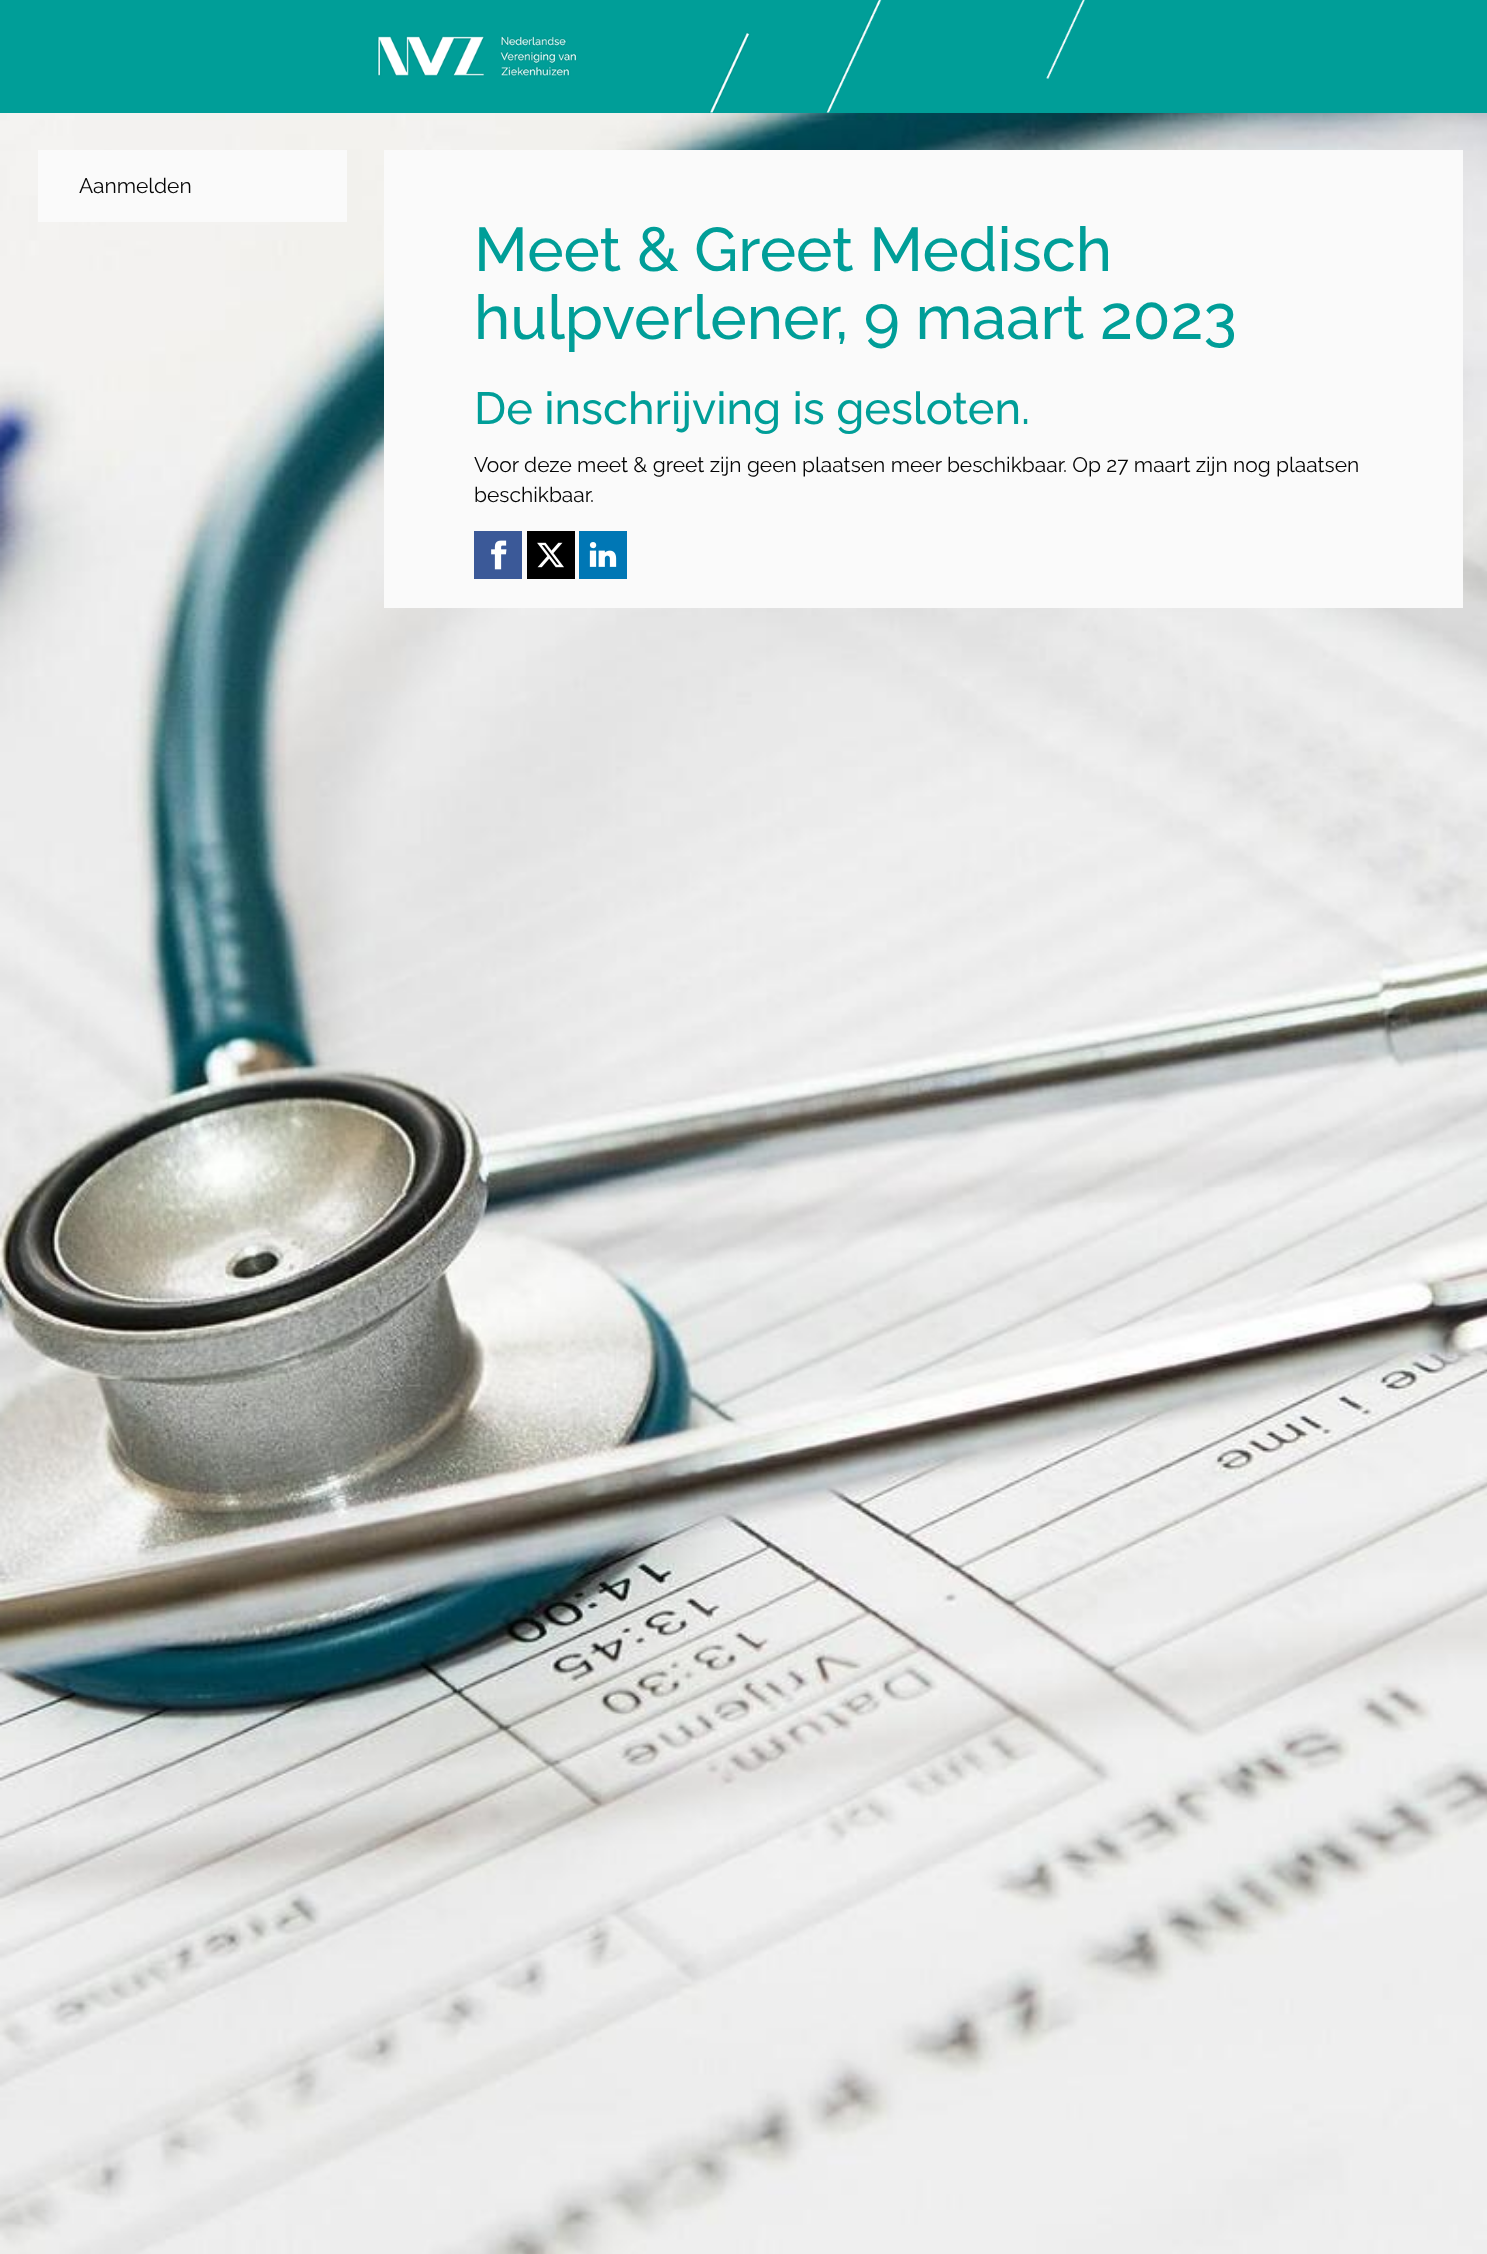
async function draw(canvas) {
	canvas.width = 1487;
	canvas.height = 2254;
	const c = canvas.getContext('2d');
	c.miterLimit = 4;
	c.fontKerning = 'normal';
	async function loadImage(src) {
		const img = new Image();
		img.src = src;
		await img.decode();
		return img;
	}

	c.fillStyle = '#fff';
	c.fillRect(0, 0, 1487, 2254);
	c.drawImage(await loadImage('img1.png'), 0, 113, 1487, 2141);
	c.fillStyle = '#009e98';
	c.fillRect(0, 0, 1487, 113);
	c.drawImage(await loadImage('img2.png'), 377, 0, 708, 113);
	c.fillStyle = '#fafafa';
	c.fillRect(38, 150, 309, 72);
	c.font = '21px Raleway';
	c.fillStyle = '#050505';
	c.fillText('Aanmelden', 79, 193);
	c.fillStyle = '#fafafa';
	c.fillRect(384, 150, 1079, 458);
	c.font = '500 61.5px Raleway';
	c.fillStyle = '#009e98';
	c.fillText('Meet & Greet Medisch', 474, 271);
	c.fillText('hulpverlener, 9 maart 2023', 474, 339);
	c.font = '500 45px Raleway';
	c.fillText('De inschrijving is gesloten.', 474, 424);
	c.font = '21px Raleway';
	c.fillStyle = '#050505';
	c.fillText('Voor deze meet & greet zijn geen plaatsen meer beschikbaar. Op 27 maart zijn nog plaatsen', 474, 472);
	c.fillText('beschikbaar.', 474, 502);
	c.fillStyle = '#3b5998';
	c.fillRect(474, 531, 48, 48);
	c.drawImage(await loadImage('img3.png'), 491, 540, 16, 30);
	c.fillStyle = '#000';
	c.fillRect(527, 531, 48, 48);
	c.drawImage(await loadImage('img4.png'), 537, 542, 27, 26);
	c.fillStyle = '#0077b5';
	c.fillRect(579, 531, 48, 48);
	c.drawImage(await loadImage('img5.png'), 589, 542, 28, 25);
}

draw(document.querySelector('canvas'));
